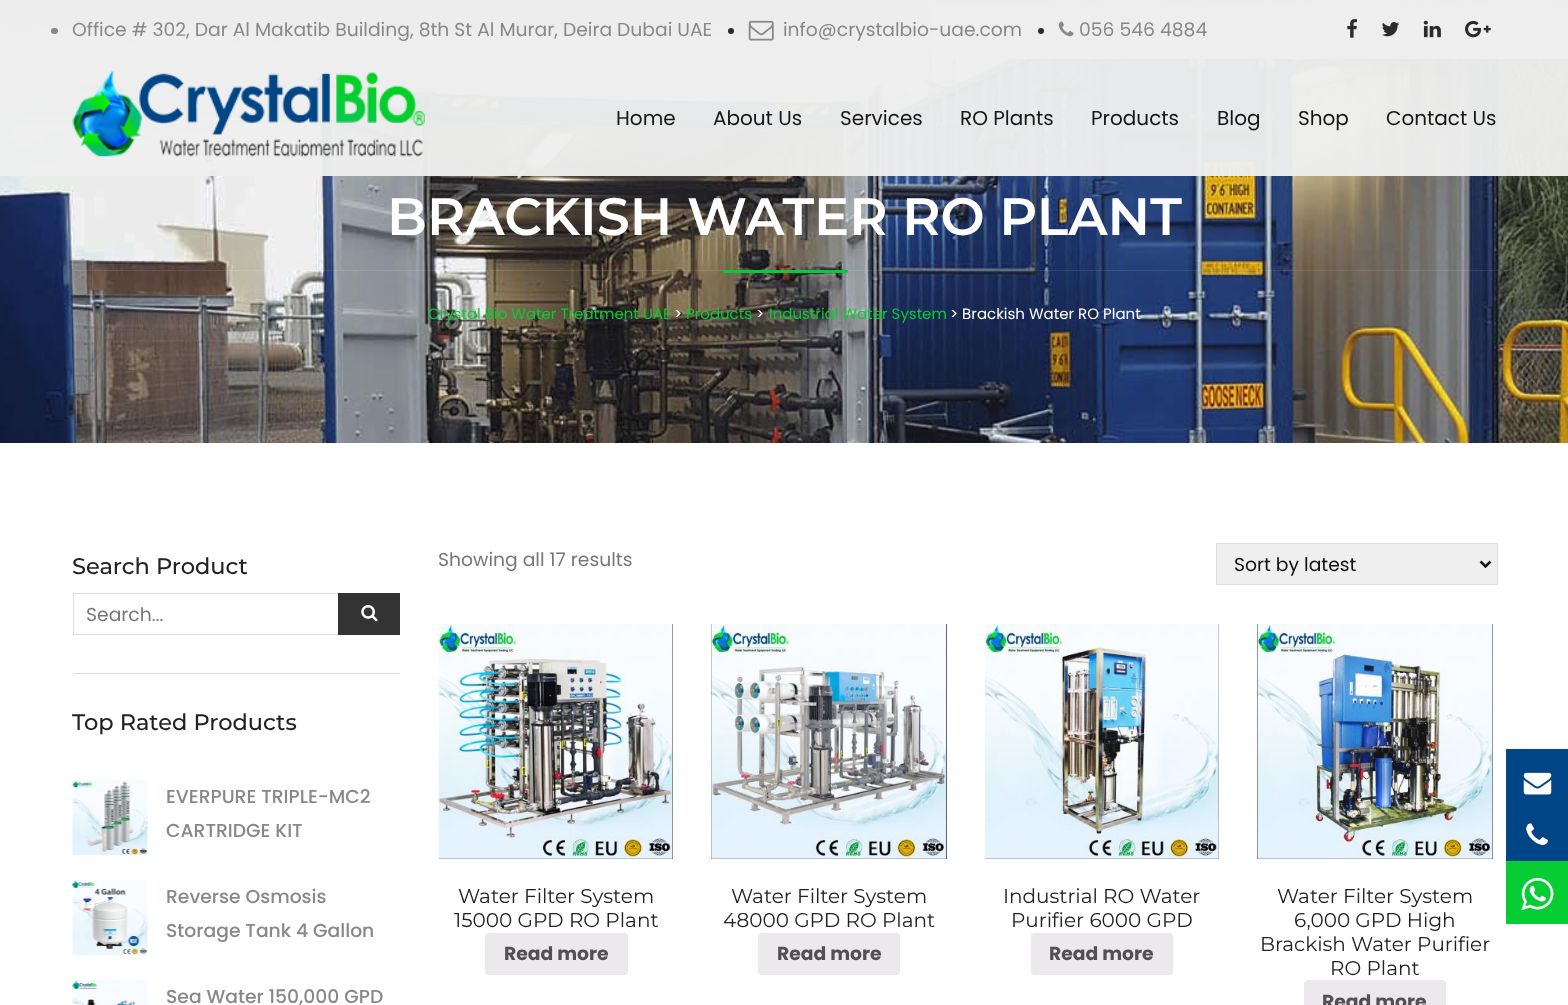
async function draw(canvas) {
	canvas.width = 1568;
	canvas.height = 1005;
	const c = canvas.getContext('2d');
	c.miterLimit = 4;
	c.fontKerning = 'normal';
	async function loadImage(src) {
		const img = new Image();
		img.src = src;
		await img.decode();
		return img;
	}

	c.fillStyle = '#fff';
	c.fillRect(0, 0, 1568, 1005);
	c.drawImage(await loadImage('img8.png'), 0, 0, 1568, 443);
	c.fillStyle = '#edeeedf7';
	c.fillRect(0, 0, 1568, 176);
	c.fillStyle = '#edeeeded';
	c.fillRect(930, 7, 638, 52);
	c.fillStyle = '#888';
	c.beginPath();
	c.roundRect(51, 28, 7, 6, 3);
	c.fill();
	c.font = '18.75px Poppins';
	c.fillText('Office # 302, Dar Al Makatib Building, 8th St Al Murar, Deira Dubai UAE', 72, 36);
	c.fillStyle = '#2b2b2b';
	c.beginPath();
	c.arc(731, 31, 3, 0, 2 * Math.PI);
	c.fill();
	c.drawImage(await loadImage('img1.png'), 748, 20, 26, 21);
	c.fillStyle = '#888';
	c.fillText('info@crystalbio-uae.com', 783, 36);
	c.fillStyle = '#2b2b2b';
	c.beginPath();
	c.arc(1041, 31, 3, 0, 2 * Math.PI);
	c.fill();
	c.drawImage(await loadImage('img2.png'), 1058, 21, 16, 16);
	c.fillStyle = '#888';
	c.fillText('056 546 4884', 1079, 36);
	c.drawImage(await loadImage('img3.png'), 1347, 19, 10, 19);
	c.drawImage(await loadImage('img4.png'), 1382, 22, 18, 15);
	c.drawImage(await loadImage('img5.png'), 1423, 20, 18, 18);
	c.drawImage(await loadImage('img6.png'), 1465, 20, 26, 18);
	c.drawImage(await loadImage('img7.png'), 72, 71, 353, 86);
	c.font = '20px Poppins';
	c.fillStyle = '#171616';
	for (const [text, x, y] of [
		['Home', 616, 125],
		['About Us', 713, 125],
		['Services', 840, 125],
		['RO Plants', 960, 125],
		['Products', 1091, 125],
		['Blog', 1217, 125],
		['Shop', 1298, 125],
		['Contact Us', 1386, 125],
	]) {
		c.fillText(text, x, y);
	}
	c.font = '600 52.5px Montserrat';
	c.fillStyle = '#fff';
	c.fillText('BRACKISH WATER RO PLANT', 387, 235);
	c.fillStyle = '#ffffff1a';
	c.fillRect(73, 270, 1425, 1);
	c.fillStyle = '#06cd33';
	c.fillRect(723, 270, 125, 3);
	c.font = '15px Poppins';
	c.fillText('Crystal Bio Water Treatment UAE', 428, 319);
	c.fillStyle = '#fff';
	c.fillText('>', 674, 319);
	c.fillStyle = '#06cd33';
	c.fillText('Products', 686, 319);
	c.fillStyle = '#fff';
	c.fillText('>', 756, 319);
	c.fillStyle = '#06cd33';
	c.fillText('Industrial Water System', 769, 319);
	c.fillStyle = '#fff';
	c.fillText('> Brackish Water RO Plant', 950, 319);
	c.fillStyle = '#ddd';
	c.fillRect(73, 673, 327, 1);
	c.font = '500 22.5px Montserrat';
	c.fillStyle = '#222';
	c.fillText('Search Product', 72, 574);
	c.strokeStyle = '#ddd';
	c.strokeRect(73.5, 593.5, 326, 41);
	c.font = '18.75px Poppins';
	c.fillStyle = '#777';
	c.fillText('Search...', 86, 621);
	c.fillStyle = '#333';
	c.fillRect(338, 593, 62, 42);
	c.drawImage(await loadImage('img9.png'), 361, 605, 17, 17);
	c.font = '500 22.5px Montserrat';
	c.fillStyle = '#222';
	c.fillText('Top Rated Products', 72, 730);
	c.drawImage(await loadImage('img10.png'), 72, 780, 76, 75);
	c.font = '500 18.75px Poppins';
	c.fillStyle = '#888';
	c.fillText('EVERPURE TRIPLE-MC2', 166, 803);
	c.fillText('CARTRIDGE KIT', 166, 837);
	c.drawImage(await loadImage('img11.png'), 72, 880, 76, 75);
	c.fillText('Reverse Osmosis', 166, 903);
	c.fillText('Storage Tank 4 Gallon', 166, 937);
	c.drawImage(await loadImage('img12.png'), 72, 980, 76, 25);
	c.fillText('Sea Water 150,000 GPD', 166, 1003);
	c.font = '18.75px Poppins';
	c.fillStyle = '#777';
	c.fillText('Showing all 17 results', 438, 566);
	c.fillStyle = '#efefef';
	c.beginPath();
	c.rect(1216.5, 543.5, 281, 41);
	c.fill();
	c.stroke();
	c.beginPath();
	c.moveTo(1480.5, 561.5);
	c.lineTo(1485.5, 566.5);
	c.lineTo(1490.5, 561.5);
	c.strokeStyle = '#111';
	c.lineWidth = 2.5;
	c.stroke();
	c.fillStyle = '#111';
	c.fillText('Sort by latest', 1234, 571);
	c.fillStyle = '#333';
	c.fillRect(439, 624, 234, 235);
	c.drawImage(await loadImage('img13.png'), 438, 623, 235, 236);
	c.font = '20px Montserrat';
	c.fillStyle = '#222';
	c.fillText('Water Filter System', 458, 903);
	c.fillText('15000 GPD RO Plant', 454, 927);
	c.fillStyle = '#ebe9eb';
	c.beginPath();
	c.roundRect(485, 933, 143, 42, 4);
	c.fill();
	c.font = 'bold 18.75px Poppins';
	c.fillStyle = '#515151';
	c.fillText('Read more', 504, 960);
	c.fillStyle = '#333';
	c.fillRect(711, 624, 236, 235);
	c.drawImage(await loadImage('img14.png'), 711, 623, 236, 236);
	c.font = '20px Montserrat';
	c.fillStyle = '#222';
	c.fillText('Water Filter System', 731, 903);
	c.fillText('48000 GPD RO Plant', 723, 927);
	c.fillStyle = '#ebe9eb';
	c.beginPath();
	c.roundRect(758, 933, 142, 42, 4);
	c.fill();
	c.font = 'bold 18.75px Poppins';
	c.fillStyle = '#515151';
	c.fillText('Read more', 777, 960);
	c.fillStyle = '#333';
	c.fillRect(985, 624, 234, 235);
	c.drawImage(await loadImage('img15.png'), 985, 623, 234, 236);
	c.font = '20px Montserrat';
	c.fillStyle = '#222';
	c.fillText('Industrial RO Water', 1003, 903);
	c.fillText('Purifier 6000 GPD', 1011, 927);
	c.fillStyle = '#ebe9eb';
	c.beginPath();
	c.roundRect(1031, 933, 142, 42, 4);
	c.fill();
	c.font = 'bold 18.75px Poppins';
	c.fillStyle = '#515151';
	c.fillText('Read more', 1049, 960);
	c.fillStyle = '#333';
	c.fillRect(1257, 624, 236, 235);
	c.drawImage(await loadImage('img16.png'), 1257, 623, 236, 236);
	c.font = '20px Montserrat';
	c.fillStyle = '#222';
	for (const [text, x, y] of [
		['Water Filter System', 1277, 903],
		['6,000 GPD High', 1294, 927],
		['Brackish Water Purifier', 1260, 951],
		['RO Plant', 1330, 975],
	]) {
		c.fillText(text, x, y);
	}
	c.fillStyle = '#ebe9eb';
	c.beginPath();
	c.roundRect(1304, 980, 142, 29, 4);
	c.fill();
	c.font = 'bold 18.75px Poppins';
	c.fillStyle = '#515151';
	c.fillText('Read more', 1322, 1008);
	c.fillStyle = '#004687';
	c.fillRect(1506, 749, 62, 112);
	c.drawImage(await loadImage('img17.png'), 1526, 823, 22, 22);
	c.drawImage(await loadImage('img18.png'), 1523, 772, 29, 23);
	c.fillStyle = '#06cd33';
	c.fillRect(1506, 861, 62, 63);
	c.drawImage(await loadImage('img19.png'), 1521, 877, 33, 34);
}

draw(document.querySelector('canvas'));
